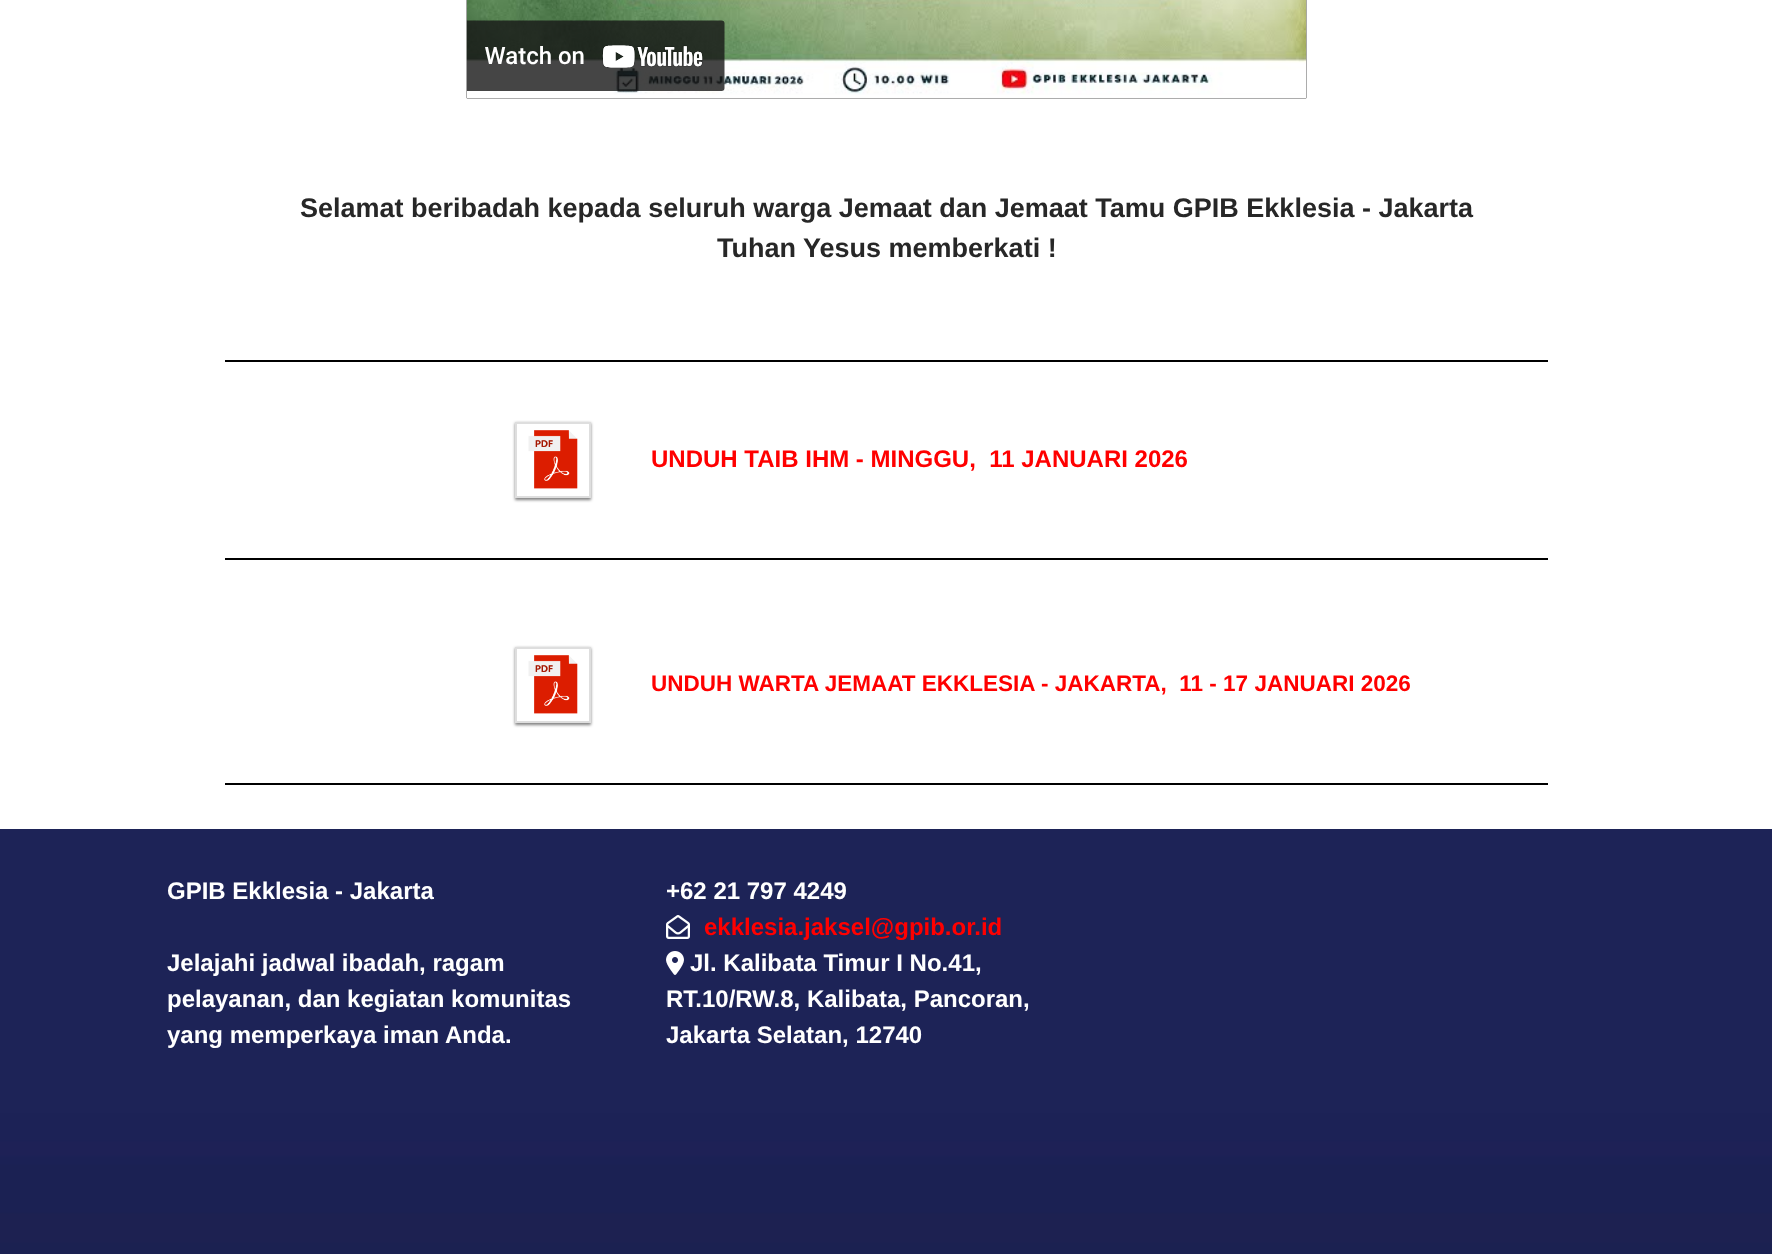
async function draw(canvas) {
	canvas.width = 1772;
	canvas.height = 1254;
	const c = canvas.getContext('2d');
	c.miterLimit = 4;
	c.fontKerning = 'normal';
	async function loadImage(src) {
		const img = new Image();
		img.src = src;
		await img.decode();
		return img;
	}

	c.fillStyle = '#fff';
	c.fillRect(0, 0, 1772, 1254);
	c.drawImage(await loadImage('img1.png'), 466, 0, 841, 99);
	c.font = 'bold 27px Liberation Sans';
	c.fillStyle = '#272727';
	c.fillText('Selamat beribadah kepada seluruh warga Jemaat dan Jemaat Tamu GPIB Ekklesia - Jakarta', 300, 217);
	c.fillText('Tuhan Yesus memberkati !', 717, 257);
	c.fillStyle = '#000';
	c.fillRect(225, 360, 1323, 2);
	c.save();
	c.beginPath();
	c.moveTo(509, 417);
	c.lineTo(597, 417);
	c.lineTo(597, 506);
	c.lineTo(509, 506);
	c.closePath();
	c.moveTo(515, 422);
	c.lineTo(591, 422);
	c.lineTo(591, 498);
	c.lineTo(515, 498);
	c.closePath();
	c.clip('evenodd');
	c.fillStyle = '#00000080';
	c.filter = 'blur(1.5px)';
	c.beginPath();
	c.rect(515, 423, 76, 77);
	c.fill();
	c.filter = 'none';
	c.restore();
	c.strokeStyle = '#dedede';
	c.lineWidth = 2;
	c.strokeRect(516, 423, 74, 74);
	c.drawImage(await loadImage('img2.png'), 528, 430, 50, 59);
	c.font = 'bold 24px Liberation Sans';
	c.fillStyle = '#f00';
	c.fillText('UNDUH TAIB IHM - MINGGU,  11 JANUARI 2026', 651, 467);
	c.fillStyle = '#000';
	c.fillRect(225, 558, 1323, 2);
	c.save();
	c.beginPath();
	c.moveTo(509, 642);
	c.lineTo(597, 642);
	c.lineTo(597, 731);
	c.lineTo(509, 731);
	c.closePath();
	c.moveTo(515, 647);
	c.lineTo(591, 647);
	c.lineTo(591, 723);
	c.lineTo(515, 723);
	c.closePath();
	c.clip('evenodd');
	c.fillStyle = '#00000080';
	c.filter = 'blur(1.5px)';
	c.beginPath();
	c.rect(515, 648, 76, 77);
	c.fill();
	c.filter = 'none';
	c.restore();
	c.strokeRect(516, 648, 74, 74);
	c.drawImage(await loadImage('img2.png'), 528, 655, 50, 59);
	c.font = 'bold 22.5px Liberation Sans';
	c.fillStyle = '#f00';
	c.fillText('UNDUH WARTA JEMAAT EKKLESIA - JAKARTA,  11 - 17 JANUARI 2026', 651, 691);
	c.fillStyle = '#000';
	c.fillRect(225, 783, 1323, 2);
	c.drawImage(await loadImage('img3.png'), 0, 829, 1772, 425);
	c.font = 'bold 24px Liberation Sans';
	c.fillStyle = '#fff';
	for (const [text, x, y] of [
		['GPIB Ekklesia - Jakarta', 167, 899],
		['Jelajahi jadwal ibadah, ragam', 167, 971],
		['pelayanan, dan kegiatan komunitas', 167, 1007],
		['yang memperkaya iman Anda.', 167, 1043],
		['+62 21 797 4249', 666, 899],
	]) {
		c.fillText(text, x, y);
	}
	c.drawImage(await loadImage('img4.png'), 666, 915, 24, 24);
	c.fillStyle = '#f00';
	c.fillText('ekklesia.jaksel@gpib.or.id', 704, 935);
	c.drawImage(await loadImage('img5.png'), 666, 951, 18, 24);
	c.fillStyle = '#fff';
	for (const [text, x, y] of [
		['Jl. Kalibata Timur I No.41,', 690, 971],
		['RT.10/RW.8, Kalibata, Pancoran,', 666, 1007],
		['Jakarta Selatan, 12740', 666, 1043],
	]) {
		c.fillText(text, x, y);
	}
}

draw(document.querySelector('canvas'));
